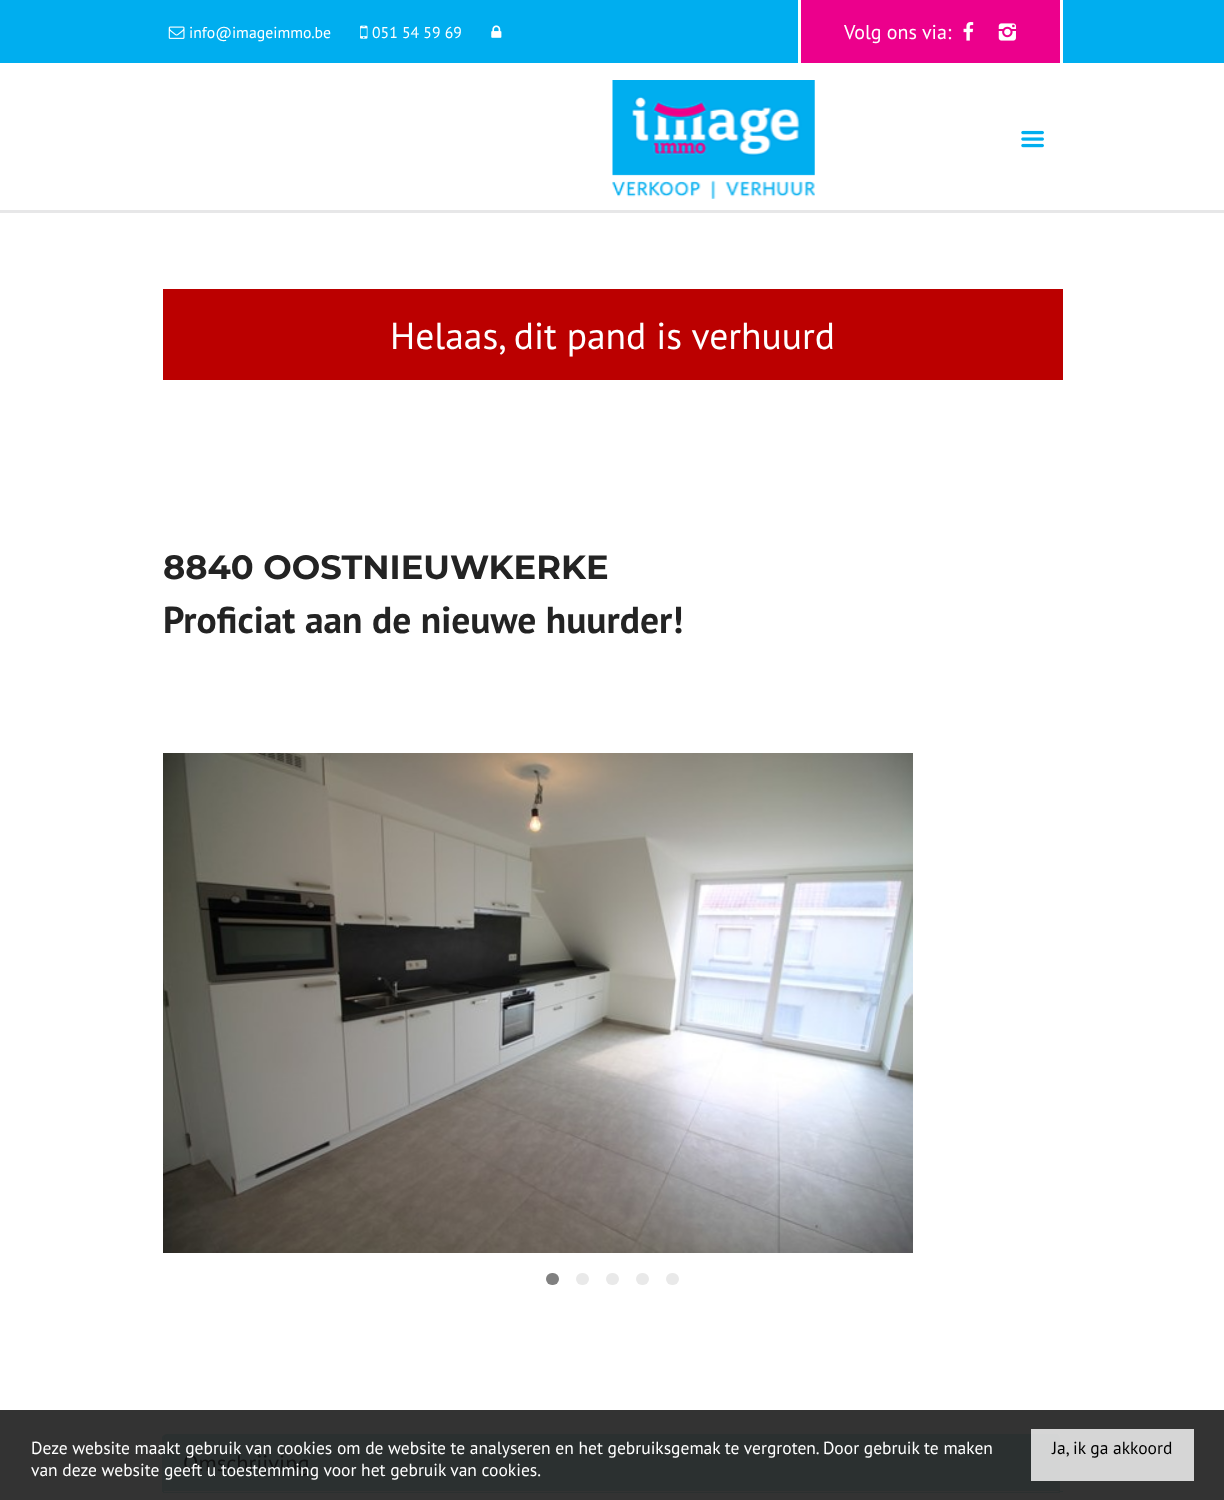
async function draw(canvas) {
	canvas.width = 1224;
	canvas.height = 1500;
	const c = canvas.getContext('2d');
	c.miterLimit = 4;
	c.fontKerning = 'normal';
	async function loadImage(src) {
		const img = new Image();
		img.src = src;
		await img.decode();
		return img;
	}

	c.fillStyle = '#fff';
	c.fillRect(0, 0, 1224, 1500);
	c.fillStyle = '#333';
	c.fillRect(0, 1410, 1224, 90);
	c.fillStyle = '#00aeef';
	c.fillRect(0, 0, 1224, 63);
	c.drawImage(await loadImage('img1.png'), 168, 26, 17, 13);
	c.font = '15.75px PT Sans';
	c.fillStyle = '#fff';
	c.fillText('info@imageimmo.be', 189, 38);
	c.drawImage(await loadImage('img2.png'), 360, 25, 8, 14);
	c.fillText('051 54 59 69', 372, 38);
	c.drawImage(await loadImage('img3.png'), 491, 25, 11, 13);
	for (const [x, y, w, h, color] of [
		[801, 0, 259, 63, '#ec008c'],
		[1060, 0, 3, 63, '#fff'],
		[798, 0, 3, 63, '#fff'],
	]) {
		c.fillStyle = color;
		c.fillRect(x, y, w, h);
	}
	c.font = '20px PT Sans';
	c.fillText('Volg ons via:', 844, 39);
	c.drawImage(await loadImage('img4.png'), 963, 22, 11, 19);
	c.drawImage(await loadImage('img5.png'), 998, 23, 18, 18);
	c.fillStyle = '#e7e7e8';
	c.fillRect(0, 210, 1224, 3);
	c.drawImage(await loadImage('img6.png'), 612, 80, 203, 119);
	c.drawImage(await loadImage('img7.png'), 1021, 130, 23, 18);
	c.fillStyle = '#b00';
	c.fillRect(163, 289, 900, 91);
	c.font = '37.5px PT Sans';
	c.fillStyle = '#fff';
	c.fillText('Helaas, dit pand is verhuurd', 390, 349);
	c.font = 'bold 33.75px Montserrat';
	c.fillStyle = '#232323';
	c.fillText('8840 OOSTNIEUWKERKE', 163, 579);
	c.font = 'bold 37.5px PT Sans';
	c.fillText('Proficiat aan de nieuwe huurder!', 163, 633);
	c.drawImage(await loadImage('img8.png'), 163, 753, 750, 500);
	c.fillStyle = '#808080';
	c.beginPath();
	c.roundRect(546, 1273, 13, 12, 6);
	c.fill();
	c.fillStyle = '#e9e9e9';
	c.beginPath();
	c.roundRect(576, 1273, 13, 12, 6);
	c.fill();
	c.beginPath();
	c.roundRect(606, 1273, 13, 12, 6);
	c.fill();
	c.beginPath();
	c.roundRect(636, 1273, 13, 12, 6);
	c.fill();
	c.beginPath();
	c.roundRect(666, 1273, 13, 12, 6);
	c.fill();
	c.fillStyle = '#2b3030';
	c.fillRect(1060, 1491, 3, 1);
	c.beginPath();
	c.roundRect(163, 1434, 897, 59, [5, 5, 0, 0]);
	c.fill();
	c.beginPath();
	c.moveTo(168, 1434);
	c.lineTo(164, 1435);
	c.lineTo(165, 1436);
	c.bezierCurveTo(166, 1435, 167, 1435, 168, 1435);
	c.lineTo(1055, 1435);
	c.bezierCurveTo(1056, 1435, 1057, 1435, 1058, 1436);
	c.lineTo(1058, 1435);
	c.bezierCurveTo(1058, 1434, 1056, 1434, 1055, 1434);
	c.closePath();
	c.fill();
	c.fillStyle = '#333';
	c.beginPath();
	c.moveTo(1060, 1492);
	c.lineTo(163, 1492);
	c.lineTo(164, 1491);
	c.lineTo(1058, 1491);
	c.closePath();
	c.fill();
	c.fillStyle = '#2b3030';
	c.beginPath();
	c.moveTo(162, 1437);
	c.lineTo(164, 1435);
	c.lineTo(165, 1436);
	c.bezierCurveTo(164, 1437, 164, 1438, 164, 1439);
	c.lineTo(164, 1491);
	c.lineTo(162, 1492);
	c.closePath();
	c.fill();
	c.font = '22.5px PT Sans';
	c.fillStyle = '#111';
	c.fillText('Omschrijving', 183, 1471);
	c.font = '17.5px PT Sans';
	c.fillStyle = '#fff';
	c.fillText('Deze website maakt gebruik van cookies om de website te analyseren en het gebruiksgemak te vergroten. Door gebruik te maken', 31, 1454);
	c.fillText('van deze website geeft u toestemming voor het gebruik van cookies.', 31, 1476);
	c.fillStyle = '#ffffffcc';
	c.fillRect(1031, 1429, 163, 52);
	c.fillStyle = '#000';
	c.fillText('Ja, ik ga akkoord', 1052, 1454);
}

draw(document.querySelector('canvas'));
